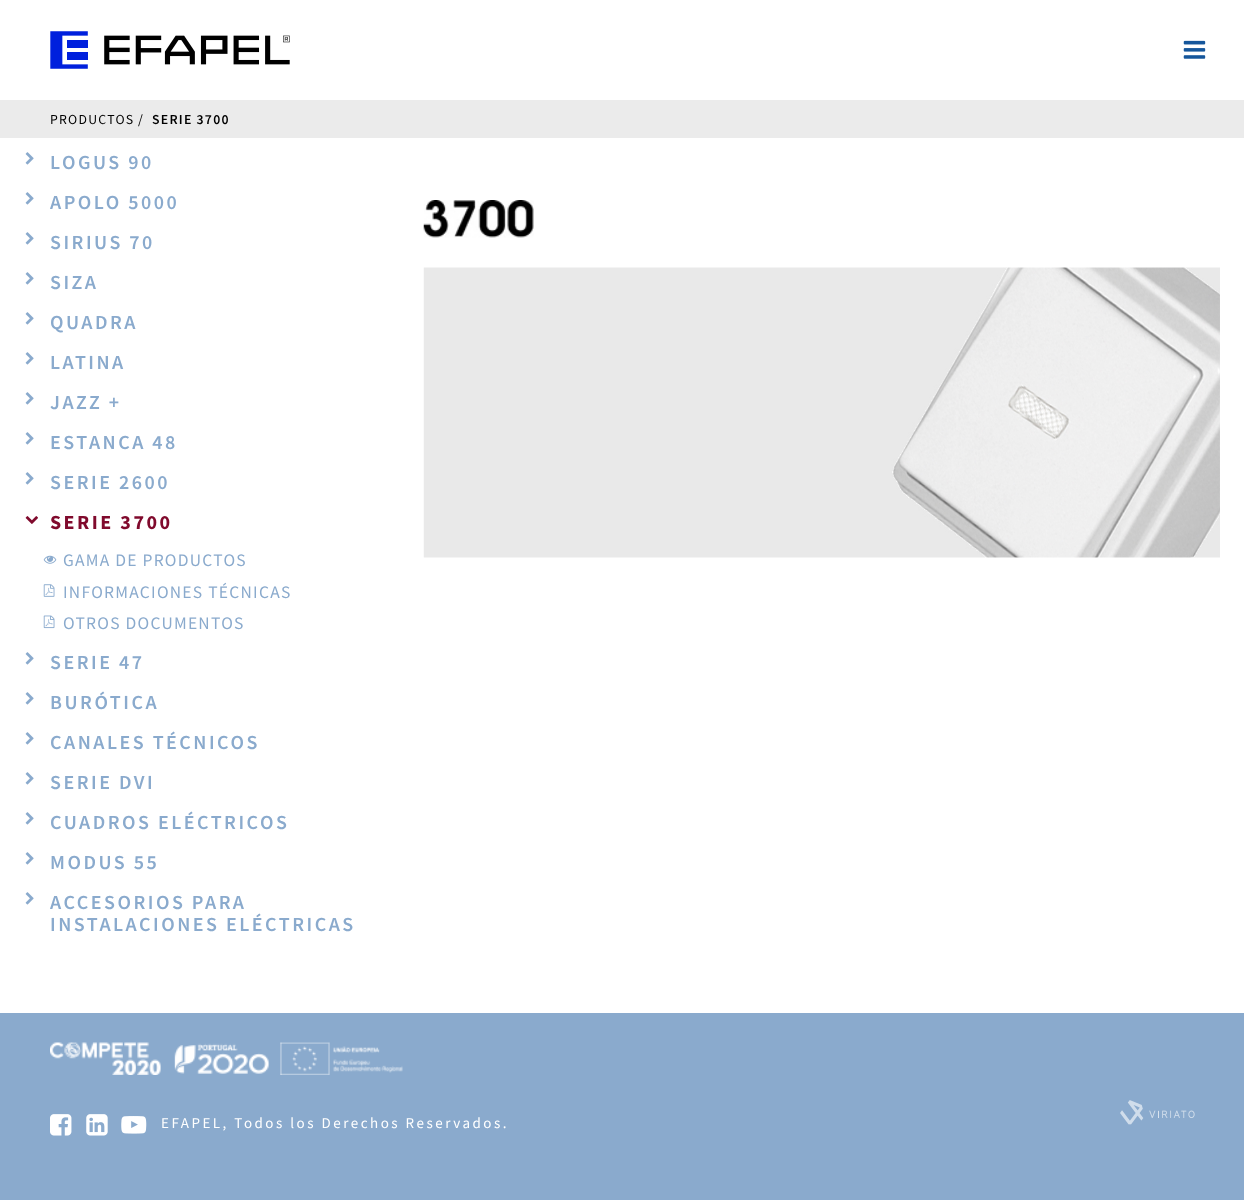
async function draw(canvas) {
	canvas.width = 1244;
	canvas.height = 1200;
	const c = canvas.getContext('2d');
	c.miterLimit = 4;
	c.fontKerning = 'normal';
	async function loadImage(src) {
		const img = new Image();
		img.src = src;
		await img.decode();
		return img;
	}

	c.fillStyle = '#fff';
	c.fillRect(0, 0, 1244, 1200);
	c.drawImage(await loadImage('img1.png'), 50, 31, 240, 38);
	c.drawImage(await loadImage('img2.png'), 1183, 40, 23, 19);
	c.fillStyle = '#ebebeb';
	c.fillRect(0, 100, 1244, 38);
	c.letterSpacing = '1.25px';
	c.font = '13.75px Source Sans Pro';
	c.fillStyle = '#000';
	c.fillText('PRODUCTOS', 50, 124);
	c.letterSpacing = '0px';
	c.fillText('/', 138, 124);
	c.letterSpacing = '1.25px';
	c.font = '600 13.75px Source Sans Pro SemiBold';
	c.fillText('SERIE 3700', 152, 124);
	c.drawImage(await loadImage('img3.png'), 25, 152, 9, 13);
	c.letterSpacing = '2.5px';
	c.font = '600 20px Source Sans Pro SemiBold';
	c.fillStyle = '#8aaacd';
	c.fillText('LOGUS 90', 50, 169);
	c.drawImage(await loadImage('img3.png'), 25, 192, 9, 13);
	c.fillText('APOLO 5000', 50, 209);
	c.drawImage(await loadImage('img3.png'), 25, 232, 9, 13);
	c.fillText('SIRIUS 70', 50, 249);
	c.drawImage(await loadImage('img3.png'), 25, 272, 9, 13);
	c.fillText('SIZA', 50, 289);
	c.drawImage(await loadImage('img3.png'), 25, 312, 9, 13);
	c.fillText('QUADRA', 50, 329);
	c.drawImage(await loadImage('img3.png'), 25, 352, 9, 13);
	c.fillText('LATINA', 50, 369);
	c.drawImage(await loadImage('img3.png'), 25, 392, 9, 13);
	c.fillText('JAZZ +', 50, 409);
	c.drawImage(await loadImage('img3.png'), 25, 432, 9, 13);
	c.fillText('ESTANCA 48', 50, 449);
	c.drawImage(await loadImage('img3.png'), 25, 472, 9, 13);
	c.fillText('SERIE 2600', 50, 489);
	c.drawImage(await loadImage('img4.png'), 25, 516, 13, 8);
	c.font = 'bold 20px Source Sans Pro';
	c.fillStyle = '#800a2d';
	c.fillText('SERIE 3700', 50, 529);
	c.drawImage(await loadImage('img5.png'), 43, 555, 14, 9);
	c.letterSpacing = '1.25px';
	c.font = '17.5px Source Sans Pro';
	c.fillStyle = '#8aaacd';
	c.fillText('GAMA DE PRODUCTOS', 63, 566);
	c.drawImage(await loadImage('img6.png'), 43, 584, 12, 13);
	c.fillText('INFORMACIONES TÉCNICAS', 63, 598);
	c.drawImage(await loadImage('img7.png'), 43, 615, 12, 14);
	c.fillText('OTROS DOCUMENTOS', 63, 629);
	c.drawImage(await loadImage('img3.png'), 25, 652, 9, 13);
	c.letterSpacing = '2.5px';
	c.font = '600 20px Source Sans Pro SemiBold';
	c.fillText('SERIE 47', 50, 669);
	c.drawImage(await loadImage('img3.png'), 25, 692, 9, 13);
	c.fillText('BURÓTICA', 50, 709);
	c.drawImage(await loadImage('img3.png'), 25, 732, 9, 13);
	c.fillText('CANALES TÉCNICOS', 50, 749);
	c.drawImage(await loadImage('img3.png'), 25, 772, 9, 13);
	c.fillText('SERIE DVI', 50, 789);
	c.drawImage(await loadImage('img3.png'), 25, 812, 9, 13);
	c.fillText('CUADROS ELÉCTRICOS', 50, 829);
	c.drawImage(await loadImage('img3.png'), 25, 852, 9, 13);
	c.fillText('MODUS 55', 50, 869);
	c.drawImage(await loadImage('img3.png'), 25, 892, 9, 13);
	c.fillText('ACCESORIOS PARA', 50, 909);
	c.fillText('INSTALACIONES ELÉCTRICAS', 50, 931);
	c.drawImage(await loadImage('img8.png'), 423, 200, 111, 38);
	c.drawImage(await loadImage('img9.png'), 423, 267, 797, 291);
	c.fillRect(0, 1013, 1244, 187);
	c.drawImage(await loadImage('img10.png'), 50, 1042, 353, 33);
	c.drawImage(await loadImage('img11.png'), 50, 1114, 22, 22);
	c.drawImage(await loadImage('img12.png'), 86, 1114, 22, 22);
	c.drawImage(await loadImage('img13.png'), 121, 1116, 26, 18);
	c.font = '15px Source Sans Pro';
	c.fillStyle = '#fff';
	c.fillText('EFAPEL, Todos los Derechos Reservados.', 161, 1128);
	c.drawImage(await loadImage('img14.png'), 1120, 1100, 75, 25);
}

draw(document.querySelector('canvas'));
